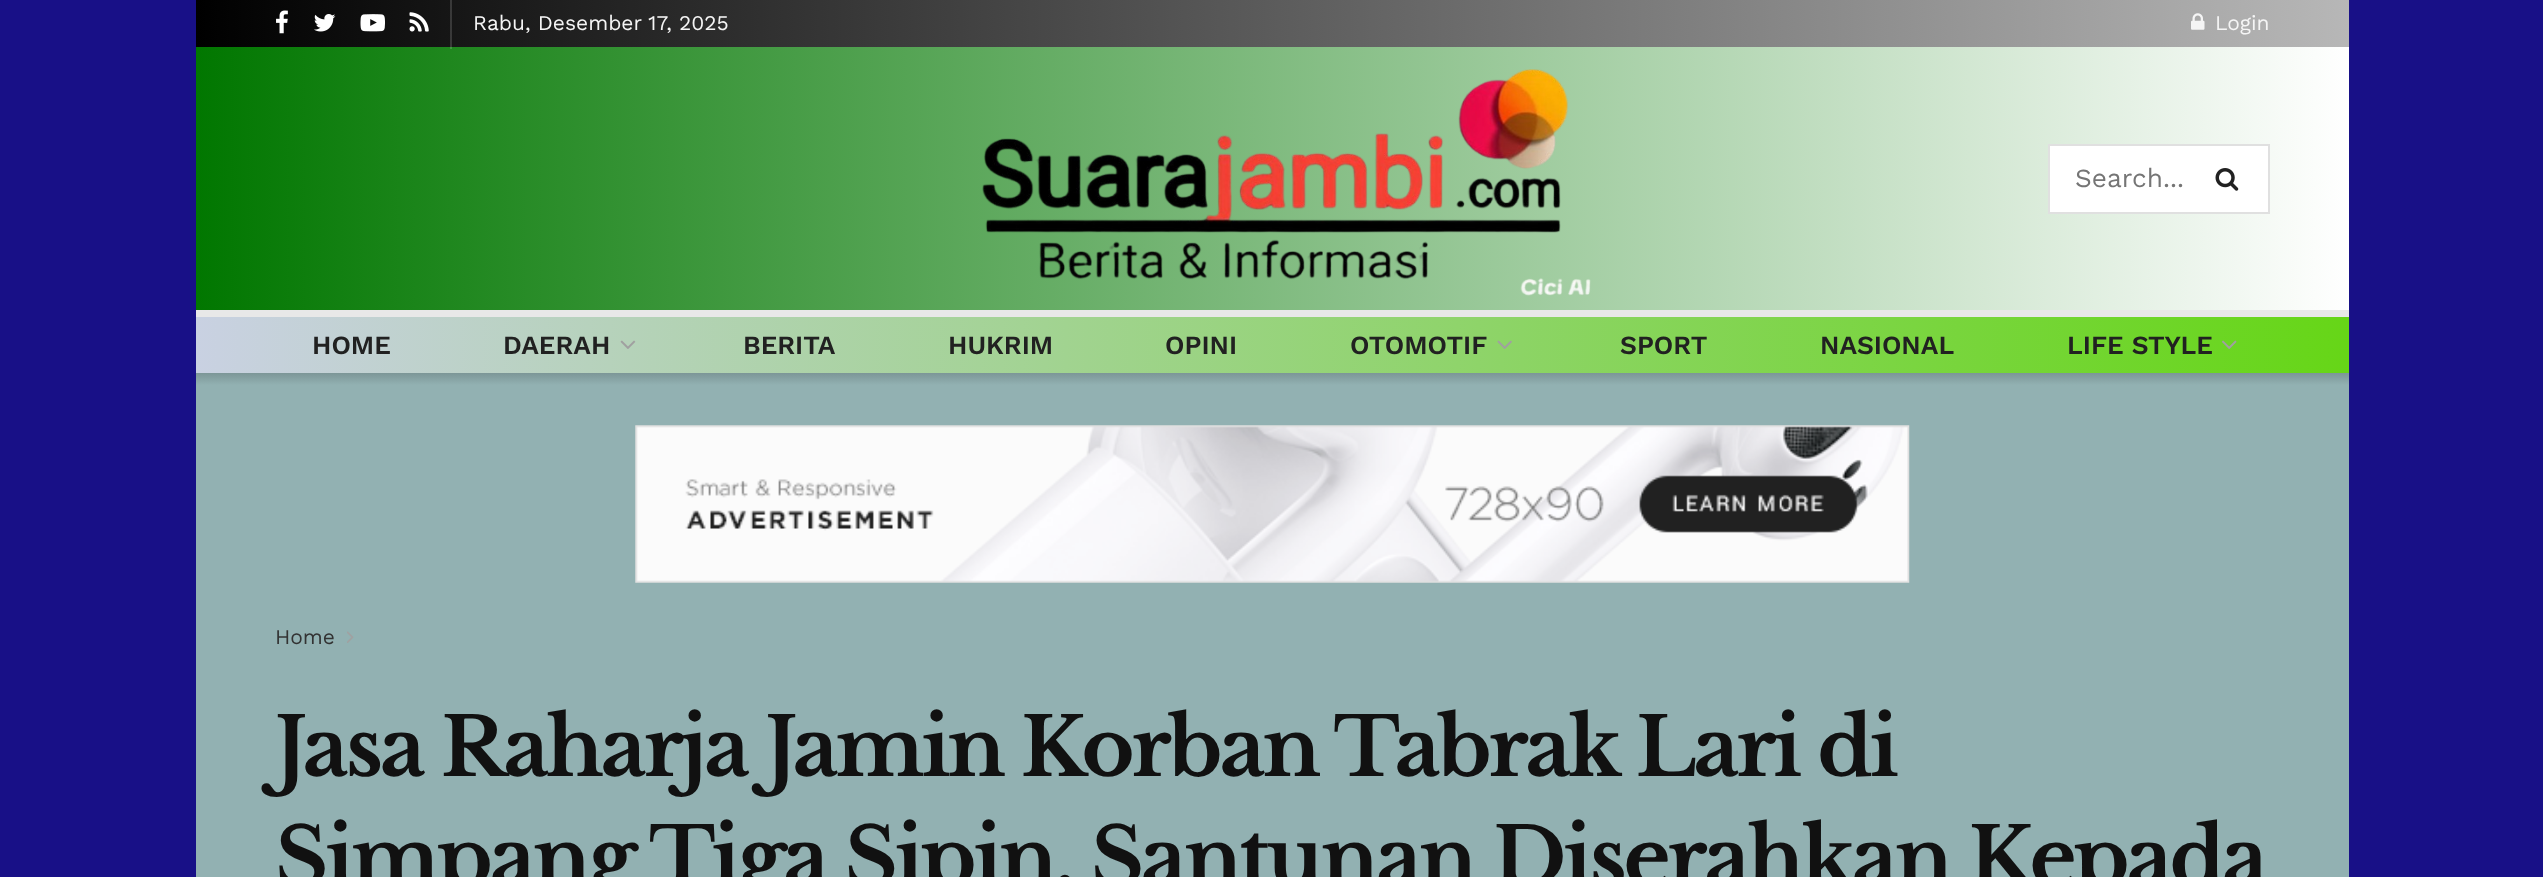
async function draw(canvas) {
	canvas.width = 2543;
	canvas.height = 877;
	const c = canvas.getContext('2d');
	c.miterLimit = 4;
	c.fontKerning = 'normal';
	async function loadImage(src) {
		const img = new Image();
		img.src = src;
		await img.decode();
		return img;
	}
	let gradient;

	c.fillStyle = '#181087';
	c.fillRect(0, 0, 2543, 877);
	gradient = c.createLinearGradient(196, 24, 2349, 24);
	gradient.addColorStop(0, '#000');
	gradient.addColorStop(1, '#b7b7b7');
	c.fillStyle = gradient;
	c.fillRect(196, 0, 2153, 47);
	gradient = c.createLinearGradient(196, 24, 2349, 24);
	gradient.addColorStop(0, '#262626');
	gradient.addColorStop(1, '#c2c2c2');
	c.fillStyle = gradient;
	c.fillRect(450, 0, 2, 47);
	c.drawImage(await loadImage('img1.png'), 276, 10, 12, 24);
	c.drawImage(await loadImage('img2.png'), 314, 14, 22, 18);
	c.drawImage(await loadImage('img3.png'), 360, 14, 25, 18);
	c.drawImage(await loadImage('img4.png'), 409, 12, 20, 20);
	c.font = '21px Work Sans';
	c.fillStyle = '#f5f5f5';
	c.fillText('Rabu, Desember 17, 2025', 473, 30);
	c.drawImage(await loadImage('img5.png'), 2191, 13, 14, 17);
	c.fillText('Login', 2215, 30);
	gradient = c.createLinearGradient(196, 179, 2349, 178);
	gradient.addColorStop(0, '#017700');
	gradient.addColorStop(1, '#fff');
	c.fillStyle = gradient;
	c.fillRect(196, 47, 2153, 263);
	gradient = c.createLinearGradient(196, 179, 2349, 178);
	gradient.addColorStop(0, '#278b26');
	gradient.addColorStop(1, '#fff');
	c.fillStyle = gradient;
	c.fillRect(450, 47, 2, 2);
	c.drawImage(await loadImage('img6.png'), 982, 69, 609, 227);
	c.fillStyle = '#fff';
	c.beginPath();
	c.rect(2049, 145, 220, 68);
	c.fill();
	c.strokeStyle = '#e0e0e0';
	c.lineWidth = 2;
	c.stroke();
	c.font = '26.25px Work Sans';
	c.fillStyle = '#757575';
	c.fillText('Search...', 2075, 187);
	c.drawImage(await loadImage('img7.png'), 2215, 168, 24, 23);
	gradient = c.createLinearGradient(196, 345, 2349, 345);
	gradient.addColorStop(0, '#c9d1e2');
	gradient.addColorStop(1, '#66d617');
	c.fillStyle = gradient;
	c.fillRect(196, 317, 2153, 56);
	c.fillStyle = '#e8e8e8';
	c.fillRect(196, 310, 2153, 7);
	c.font = '600 26.25px Work Sans';
	c.fillStyle = '#212121';
	c.fillText('HOME', 312, 354);
	c.fillText('DAERAH', 503, 354);
	c.drawImage(await loadImage('img8.png'), 620, 340, 16, 9);
	for (const [text, x, y] of [
		['BERITA', 743, 354],
		['HUKRIM', 948, 354],
		['OPINI', 1165, 354],
		['OTOMOTIF', 1350, 354],
	]) {
		c.fillText(text, x, y);
	}
	c.drawImage(await loadImage('img9.png'), 1497, 340, 15, 9);
	for (const [text, x, y] of [
		['SPORT', 1620, 354],
		['NASIONAL', 1820, 354],
		['LIFE STYLE', 2067, 354],
	]) {
		c.fillText(text, x, y);
	}
	c.drawImage(await loadImage('img10.png'), 2222, 340, 15, 9);
	gradient = c.createLinearGradient(1272, 373, 1272, 385);
	gradient.addColorStop(0, '#7c9697');
	gradient.addColorStop(1, '#92b1b2');
	c.fillStyle = gradient;
	c.fillRect(196, 373, 2153, 12);
	c.fillStyle = '#92b1b2';
	c.fillRect(196, 385, 2153, 492);
	c.drawImage(await loadImage('img11.png'), 635, 425, 1275, 158);
	c.font = '21px Work Sans';
	c.fillStyle = '#333';
	c.fillText('Home', 275, 644);
	c.drawImage(await loadImage('img12.png'), 347, 631, 7, 12);
	c.letterSpacing = '-3.2px';
	c.font = 'bold 80.5px Libre Baskerville';
	c.fillStyle = '#111';
	c.fillText('Jasa Raharja Jamin Korban Tabrak Lari di', 275, 776);
	c.fillText('Simpang Tiga Sipin, Santunan Diserahkan Kepada', 275, 886);
}

draw(document.querySelector('canvas'));
